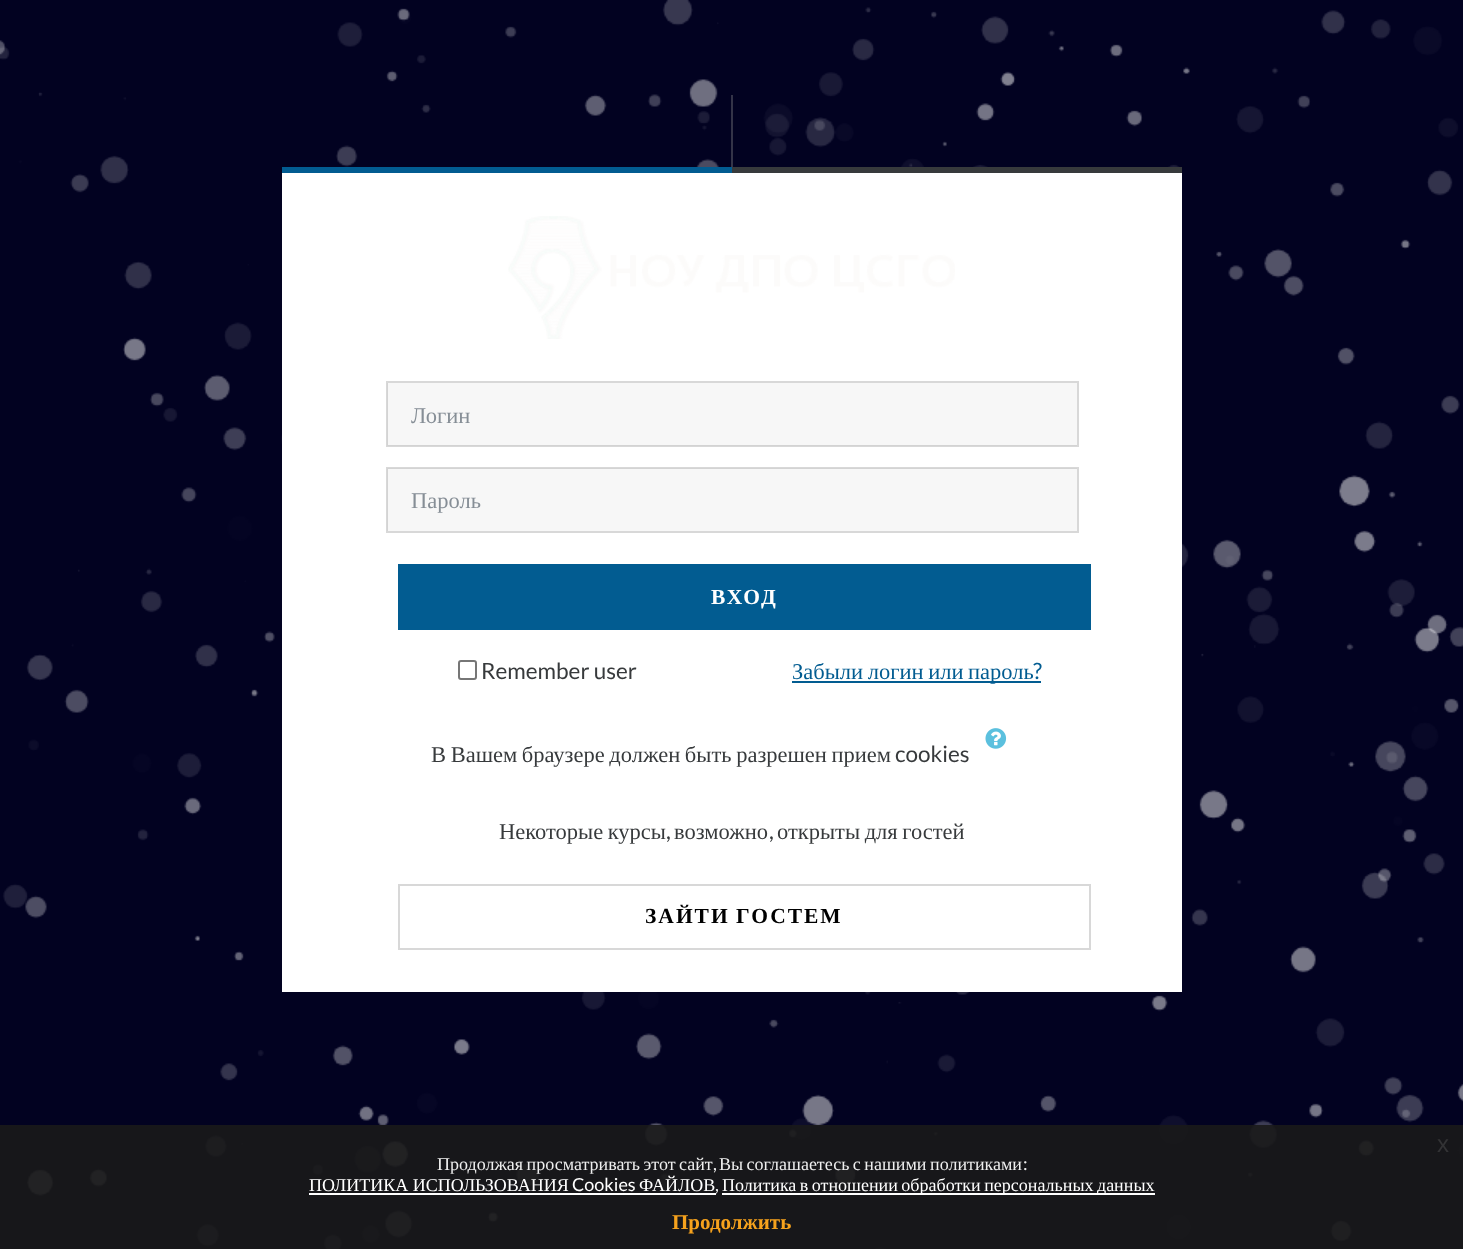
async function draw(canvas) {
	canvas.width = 1463;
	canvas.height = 1249;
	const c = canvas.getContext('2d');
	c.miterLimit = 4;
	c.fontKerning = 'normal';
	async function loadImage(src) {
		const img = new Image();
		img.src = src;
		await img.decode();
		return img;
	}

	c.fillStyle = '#020221';
	c.fillRect(0, 0, 1463, 1249);
	c.drawImage(await loadImage('img1.png'), 0, 0, 1463, 1249);
	for (const [x, y, w, h, color] of [
		[282, 173, 900, 819, '#fff'],
		[731, 95, 2, 72, '#343448'],
		[282, 167, 450, 6, '#025c91'],
		[732, 167, 450, 6, '#373a3c'],
	]) {
		c.fillStyle = color;
		c.fillRect(x, y, w, h);
	}
	c.drawImage(await loadImage('img2.png'), 508, 216, 447, 123);
	c.fillStyle = '#f7f7f7';
	c.fillRect(387, 383, 690, 63);
	c.strokeStyle = '#90909059';
	c.lineWidth = 2;
	c.strokeRect(387, 382, 691, 64);
	c.font = '22.5px Liberation Serif';
	c.fillStyle = '#868e96';
	c.fillText('Логин', 411, 423);
	c.fillStyle = '#f7f7f7';
	c.fillRect(387, 468, 690, 63);
	c.strokeRect(387, 468, 691, 64);
	c.fillStyle = '#868e96';
	c.fillText('Пароль', 411, 508);
	c.fillStyle = '#025c91';
	c.fillRect(398, 564, 693, 66);
	c.letterSpacing = '2px';
	c.font = 'bold 21.5px Liberation Serif';
	c.fillStyle = '#fff';
	c.fillText('ВХОД', 711, 604);
	c.beginPath();
	c.roundRect(459, 661, 17, 18, 2);
	c.strokeStyle = '#767676';
	c.stroke();
	c.letterSpacing = '0px';
	c.font = '22.5px Lato';
	c.fillStyle = '#373a3c';
	c.fillText('Remember user', 481, 679);
	c.fillStyle = '#025c91';
	c.fillRect(792, 681, 249, 2);
	c.wordSpacing = '-1px';
	c.font = '22.5px Liberation Serif';
	c.fillText('Забыли логин или пароль', 792, 679);
	c.wordSpacing = '0px';
	c.font = '22.5px Lato';
	c.fillText('?', 1033, 679);
	c.drawImage(await loadImage('img3.png'), 985, 728, 22, 21);
	c.wordSpacing = '-1px';
	c.font = '22.5px Liberation Serif';
	c.fillStyle = '#373a3c';
	c.fillText('В Вашем браузере должен быть разрешен прием', 431, 762);
	c.wordSpacing = '0px';
	c.font = '22.5px Lato';
	c.fillText('cookies', 895, 762);
	c.wordSpacing = '-1px';
	c.font = '22.5px Liberation Serif';
	c.fillText('Некоторые курсы', 499, 839);
	c.wordSpacing = '0px';
	c.font = '22.5px Lato';
	c.fillText(',', 666, 839);
	c.font = '22.5px Liberation Serif';
	c.fillText('возможно', 674, 839);
	c.font = '22.5px Lato';
	c.fillText(',', 769, 839);
	c.wordSpacing = '-1px';
	c.font = '22.5px Liberation Serif';
	c.fillText('открыты для гостей', 777, 839);
	c.strokeStyle = '#d8d8d8';
	c.strokeRect(399, 885, 691, 64);
	c.letterSpacing = '2px';
	c.font = 'bold 21.5px Liberation Serif';
	c.fillStyle = '#000';
	c.fillText('ЗАЙТИ ГОСТЕМ', 645, 923);
	c.fillStyle = '#191919e6';
	c.fillRect(0, 1125, 1463, 124);
	c.letterSpacing = '0px';
	c.wordSpacing = '0px';
	c.font = '24px Liberation Sans';
	c.fillStyle = '#333335';
	c.fillText('x', 1437, 1152);
	c.wordSpacing = '-1px';
	c.font = '18px Liberation Serif';
	c.fillStyle = '#efefef';
	c.fillText('Продолжая просматривать этот сайт', 437, 1170);
	c.wordSpacing = '0px';
	c.font = '18px Lato';
	c.fillText(',', 713, 1170);
	c.wordSpacing = '-1px';
	c.font = '18px Liberation Serif';
	c.fillText('Вы соглашаетесь с нашими политиками', 719, 1170);
	c.wordSpacing = '0px';
	c.font = '18px Lato';
	c.fillText(':', 1023, 1170);
	c.font = '18px Liberation Serif';
	c.fillStyle = '#fff';
	c.fillText('ПОЛИТИКА ИСПОЛЬЗОВАНИЯ', 309, 1191);
	c.fillRect(309, 1193, 407, 2);
	c.font = '18px Lato';
	c.fillText('Cookies', 572, 1191);
	c.font = '18px Liberation Serif';
	c.fillText('ФАЙЛОВ', 639, 1191);
	c.font = '18px Lato';
	c.fillStyle = '#efefef';
	c.fillText(',', 715, 1191);
	c.fillStyle = '#fff';
	c.fillRect(722, 1193, 433, 2);
	c.wordSpacing = '-1px';
	c.font = '18px Liberation Serif';
	c.fillText('Политика в отношении обработки персональных данных', 722, 1191);
	c.wordSpacing = '0px';
	c.font = 'bold 21px Liberation Serif';
	c.fillStyle = '#f6a21d';
	c.fillText('Продолжить', 672, 1229);
}

draw(document.querySelector('canvas'));
